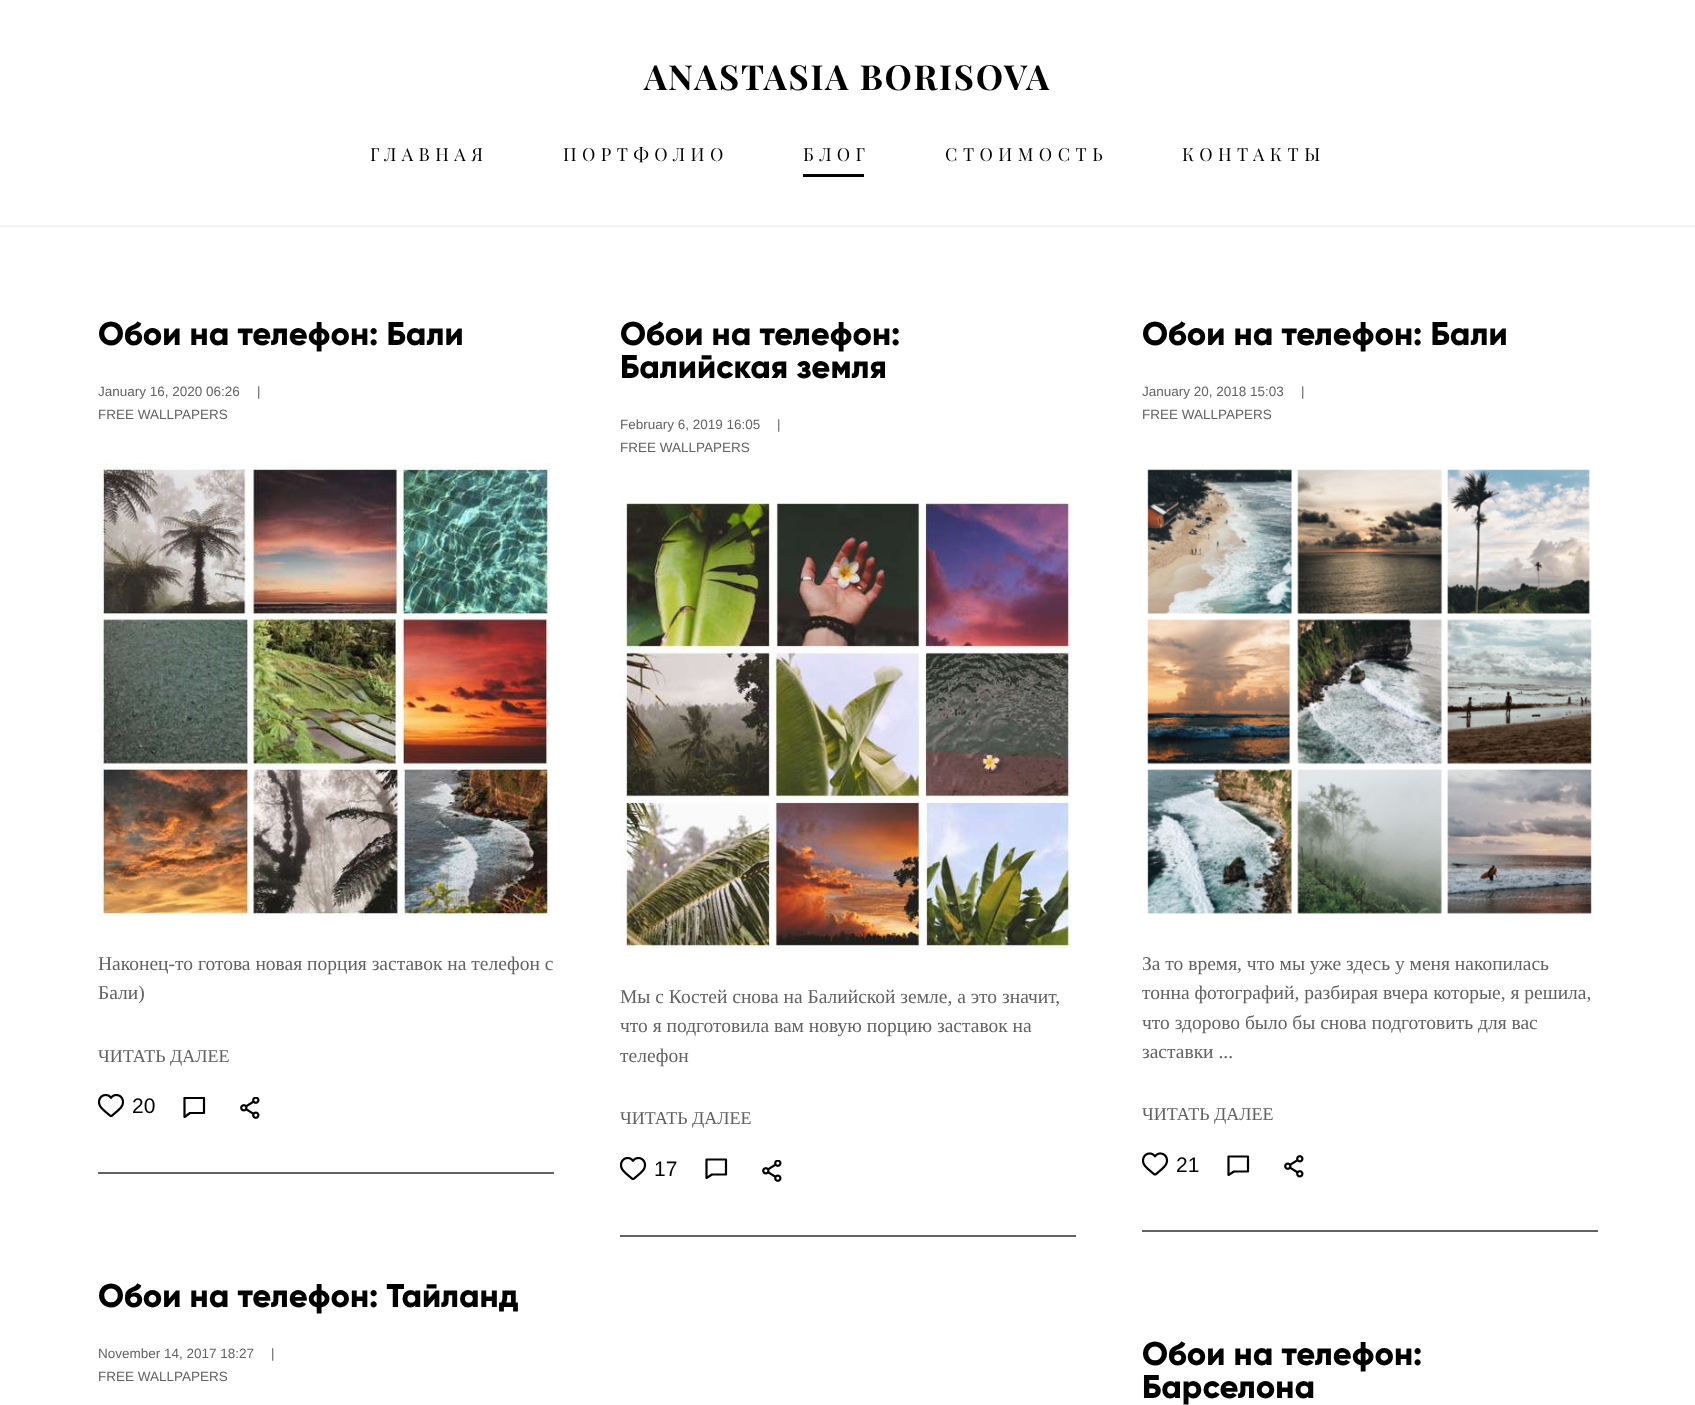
async function draw(canvas) {
	canvas.width = 1695;
	canvas.height = 1405;
	const c = canvas.getContext('2d');
	c.miterLimit = 4;
	c.fontKerning = 'normal';
	async function loadImage(src) {
		const img = new Image();
		img.src = src;
		await img.decode();
		return img;
	}

	c.fillStyle = '#fff';
	c.fillRect(0, 0, 1695, 1405);
	c.letterSpacing = '1.75px';
	c.font = 'bold 34.5px Playfair Display';
	c.fillStyle = '#000';
	c.fillText('ANASTASIA BORISOVA', 644, 90);
	c.letterSpacing = '5.5px';
	c.font = '18px Playfair Display';
	for (const [text, x, y] of [
		['ГЛАВНАЯ', 370, 161],
		['ПОРТФОЛИО', 563, 161],
		['БЛОГ', 803, 161],
	]) {
		c.fillText(text, x, y);
	}
	c.fillRect(803, 174, 61, 3);
	c.fillText('СТОИМОСТЬ', 945, 161);
	c.fillText('КОНТАКТЫ', 1182, 161);
	c.fillStyle = '#f2f2f2';
	c.fillRect(0, 225, 1695, 2);
	c.letterSpacing = '0px';
	c.font = '800 33px Gilroy';
	c.fillStyle = '#000';
	c.fillText('Обои на телефон: Бали', 98, 345);
	c.font = '13.5px Liberation Sans';
	c.fillStyle = '#626264';
	for (const [text, x, y] of [
		['January 16, 2020 06:26', 98, 396],
		['|', 257, 396],
		['FREE WALLPAPERS', 98, 419],
	]) {
		c.fillText(text, x, y);
	}
	c.drawImage(await loadImage('img1.png'), 97, 463, 454, 454);
	c.font = '19.5px Liberation Serif';
	c.fillText('Наконец-то готова новая порция заставок на телефон с', 98, 970);
	c.fillText('Бали)', 98, 999);
	c.font = '18px Liberation Serif';
	c.fillText('ЧИТАТЬ ДАЛЕЕ', 98, 1062);
	c.drawImage(await loadImage('img2.png'), 98, 1094, 27, 24);
	c.font = '21px Liberation Sans';
	c.fillStyle = '#000';
	c.fillText('20', 132, 1113);
	c.save();
	c.beginPath();
	c.rect(183, 1097, 23, 22);
	c.clip();
	c.beginPath();
	c.moveTo(184.5, 1098);
	c.lineTo(204, 1098);
	c.moveTo(184.5, 1098);
	c.lineTo(184.5, 1117);
	c.lineTo(190, 1113);
	c.lineTo(204, 1113);
	c.lineTo(204, 1098);
	c.strokeStyle = '#000';
	c.lineWidth = 2.2;
	c.lineCap = 'round';
	c.lineJoin = 'round';
	c.stroke();
	c.restore();
	c.drawImage(await loadImage('img3.png'), 240, 1097, 20, 22);
	c.fillStyle = '#626264';
	c.fillRect(98, 1172, 456, 2);
	c.font = '800 33px Gilroy';
	c.fillStyle = '#000';
	c.fillText('Обои на телефон:', 620, 345);
	c.fillText('Балийская земля', 620, 378);
	c.font = '13.5px Liberation Sans';
	c.fillStyle = '#626264';
	for (const [text, x, y] of [
		['February 6, 2019 16:05', 620, 429],
		['|', 777, 429],
		['FREE WALLPAPERS', 620, 452],
	]) {
		c.fillText(text, x, y);
	}
	c.drawImage(await loadImage('img4.png'), 619, 496, 454, 453);
	c.font = '19.5px Liberation Serif';
	for (const [text, x, y] of [
		['Мы с Костей снова на Балийской земле, а это значит,', 620, 1003],
		['что я подготовила вам новую порцию заставок на', 620, 1032],
		['телефон', 620, 1062],
	]) {
		c.fillText(text, x, y);
	}
	c.font = '18px Liberation Serif';
	c.fillText('ЧИТАТЬ ДАЛЕЕ', 620, 1124);
	c.drawImage(await loadImage('img2.png'), 620, 1157, 27, 24);
	c.font = '21px Liberation Sans';
	c.fillStyle = '#000';
	c.fillText('17', 654, 1176);
	c.beginPath();
	c.moveTo(706.5, 1159.5);
	c.lineTo(726, 1159.5);
	c.moveTo(706.5, 1159.5);
	c.lineTo(706.5, 1178);
	c.lineTo(712, 1174.5);
	c.lineTo(726, 1174.5);
	c.lineTo(726, 1159.5);
	c.strokeStyle = '#000';
	c.lineWidth = 2.2;
	c.lineCap = 'round';
	c.lineJoin = 'round';
	c.stroke();
	c.drawImage(await loadImage('img3.png'), 762, 1160, 20, 22);
	c.fillStyle = '#626264';
	c.fillRect(620, 1235, 456, 2);
	c.font = '800 33px Gilroy';
	c.fillStyle = '#000';
	c.fillText('Обои на телефон: Бали', 1142, 345);
	c.font = '13.5px Liberation Sans';
	c.fillStyle = '#626264';
	for (const [text, x, y] of [
		['January 20, 2018 15:03', 1142, 396],
		['|', 1301, 396],
		['FREE WALLPAPERS', 1142, 419],
	]) {
		c.fillText(text, x, y);
	}
	c.drawImage(await loadImage('img5.png'), 1147, 469, 445, 445);
	c.font = '19.5px Liberation Serif';
	for (const [text, x, y] of [
		['За то время, что мы уже здесь у меня накопилась', 1142, 970],
		['тонна фотографий, разбирая вчера которые, я решила,', 1142, 999],
		['что здорово было бы снова подготовить для вас', 1142, 1029],
		['заставки ...', 1142, 1058],
	]) {
		c.fillText(text, x, y);
	}
	c.font = '18px Liberation Serif';
	c.fillText('ЧИТАТЬ ДАЛЕЕ', 1142, 1120);
	c.drawImage(await loadImage('img6.png'), 1142, 1152, 27, 24);
	c.font = '21px Liberation Sans';
	c.fillStyle = '#000';
	c.fillText('21', 1176, 1172);
	c.beginPath();
	c.moveTo(1228.5, 1156.5);
	c.lineTo(1248, 1156.5);
	c.moveTo(1228.5, 1156.5);
	c.lineTo(1228.5, 1175);
	c.lineTo(1234, 1171.5);
	c.lineTo(1248, 1171.5);
	c.lineTo(1248, 1156.5);
	c.stroke();
	c.drawImage(await loadImage('img7.png'), 1284, 1155, 20, 23);
	c.fillStyle = '#626264';
	c.fillRect(1142, 1230, 456, 2);
	c.font = '800 33px Gilroy';
	c.fillStyle = '#000';
	c.fillText('Обои на телефон: Тайланд', 98, 1307);
	c.font = '13.5px Liberation Sans';
	c.fillStyle = '#626264';
	for (const [text, x, y] of [
		['November 14, 2017 18:27', 98, 1358],
		['|', 271, 1358],
		['FREE WALLPAPERS', 98, 1381],
	]) {
		c.fillText(text, x, y);
	}
	c.font = '800 33px Gilroy';
	c.fillStyle = '#000';
	c.fillText('Обои на телефон:', 1142, 1365);
	c.fillText('Барселона', 1142, 1398);
}

draw(document.querySelector('canvas'));
